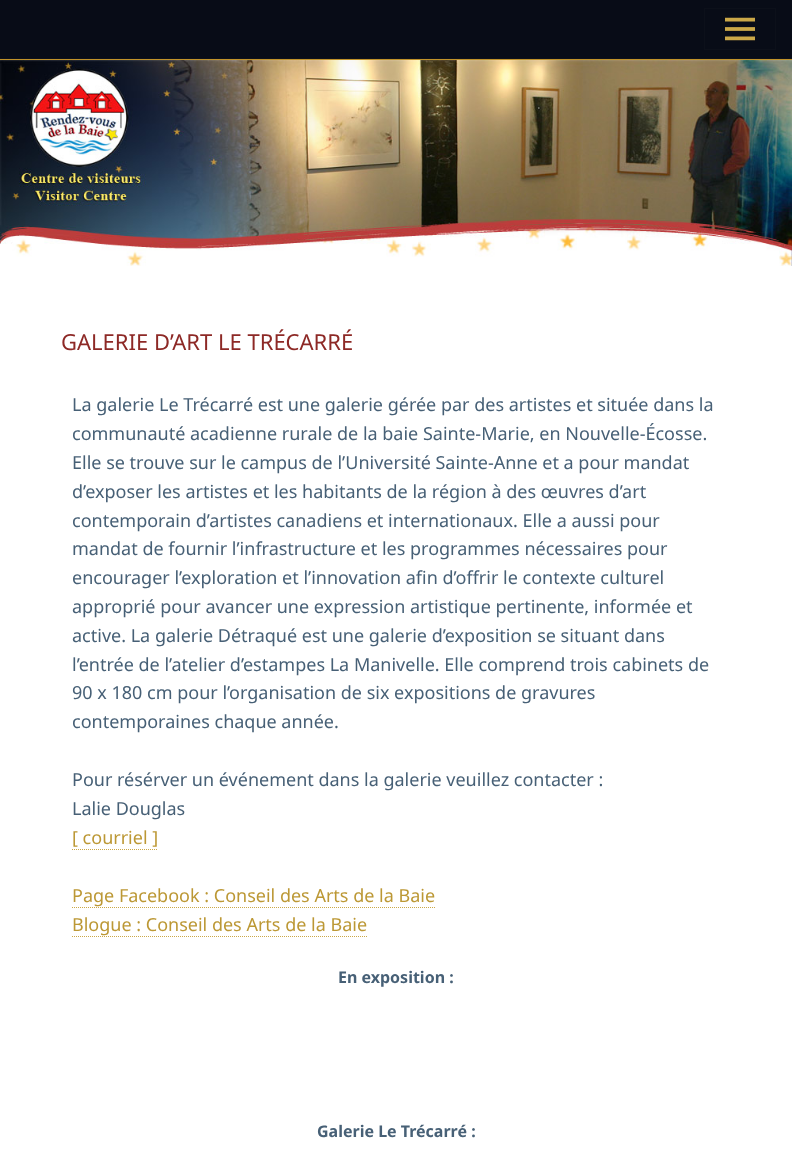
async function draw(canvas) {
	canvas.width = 792;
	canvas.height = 1159;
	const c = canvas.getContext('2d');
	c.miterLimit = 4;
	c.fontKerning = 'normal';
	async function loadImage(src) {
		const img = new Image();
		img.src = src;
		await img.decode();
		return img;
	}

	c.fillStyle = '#080c17';
	c.fillRect(0, 0, 792, 1159);
	c.fillStyle = '#0c101a';
	c.fillRect(0, 58, 792, 1);
	c.strokeStyle = '#0c101a';
	c.strokeRect(704.5, 8.5, 71, 41);
	c.drawImage(await loadImage('img1.png'), 725, 17, 30, 24);
	c.fillStyle = '#c09229';
	c.fillRect(0, 59, 792, 1);
	c.drawImage(await loadImage('img2.png'), 0, 60, 792, 206);
	c.fillStyle = '#fff';
	c.fillRect(0, 266, 792, 893);
	c.font = '22px Noto Sans';
	c.fillStyle = '#8d2926';
	c.fillText('GALERIE D’ART LE TRÉCARRÉ', 61, 350);
	c.font = '18px Noto Sans';
	c.fillStyle = '#476076';
	for (const [text, x, y] of [
		['La galerie Le Trécarré est une galerie gérée par des artistes et située dans la', 72, 411],
		['communauté acadienne rurale de la baie Sainte-Marie, en Nouvelle-Écosse.', 72, 440],
		['Elle se trouve sur le campus de l’Université Sainte-Anne et a pour mandat', 72, 469],
		['d’exposer les artistes et les habitants de la région à des œuvres d’art', 72, 498],
		['contemporain d’artistes canadiens et internationaux. Elle a aussi pour', 72, 527],
		['mandat de fournir l’infrastructure et les programmes nécessaires pour', 72, 555],
		['encourager l’exploration et l’innovation afin d’offrir le contexte culturel', 72, 584],
		['approprié pour avancer une expression artistique pertinente, informée et', 72, 613],
		['active. La galerie Détraqué est une galerie d’exposition se situant dans', 72, 642],
		['l’entrée de l’atelier d’estampes La Manivelle. Elle comprend trois cabinets de', 72, 671],
		['90 x 180 cm pour l’organisation de six expositions de gravures', 72, 699],
		['contemporaines chaque année.', 72, 728],
		['Pour résérver un événement dans la galerie veuillez contacter :', 72, 786],
		['Lalie Douglas', 72, 815],
	]) {
		c.fillText(text, x, y);
	}
	c.fillStyle = '#bc9835';
	c.fillText('[ courriel ]', 72, 844);
	c.beginPath();
	c.moveTo(72, 849.5);
	c.lineTo(158, 849.5);
	c.strokeStyle = '#cba848';
	c.setLineDash([1, 1]);
	c.stroke();
	c.fillText('Page Facebook : Conseil des Arts de la Baie', 72, 902);
	c.beginPath();
	c.moveTo(72, 907.5);
	c.lineTo(435, 907.5);
	c.stroke();
	c.fillText('Blogue : Conseil des Arts de la Baie', 72, 931);
	c.beginPath();
	c.moveTo(72, 936.5);
	c.lineTo(367, 936.5);
	c.stroke();
	c.font = 'bold 16px Noto Sans';
	c.fillStyle = '#476076';
	c.fillText('En exposition :', 338, 983);
	c.fillText('Galerie Le Trécarré :', 317, 1137);
}

draw(document.querySelector('canvas'));
